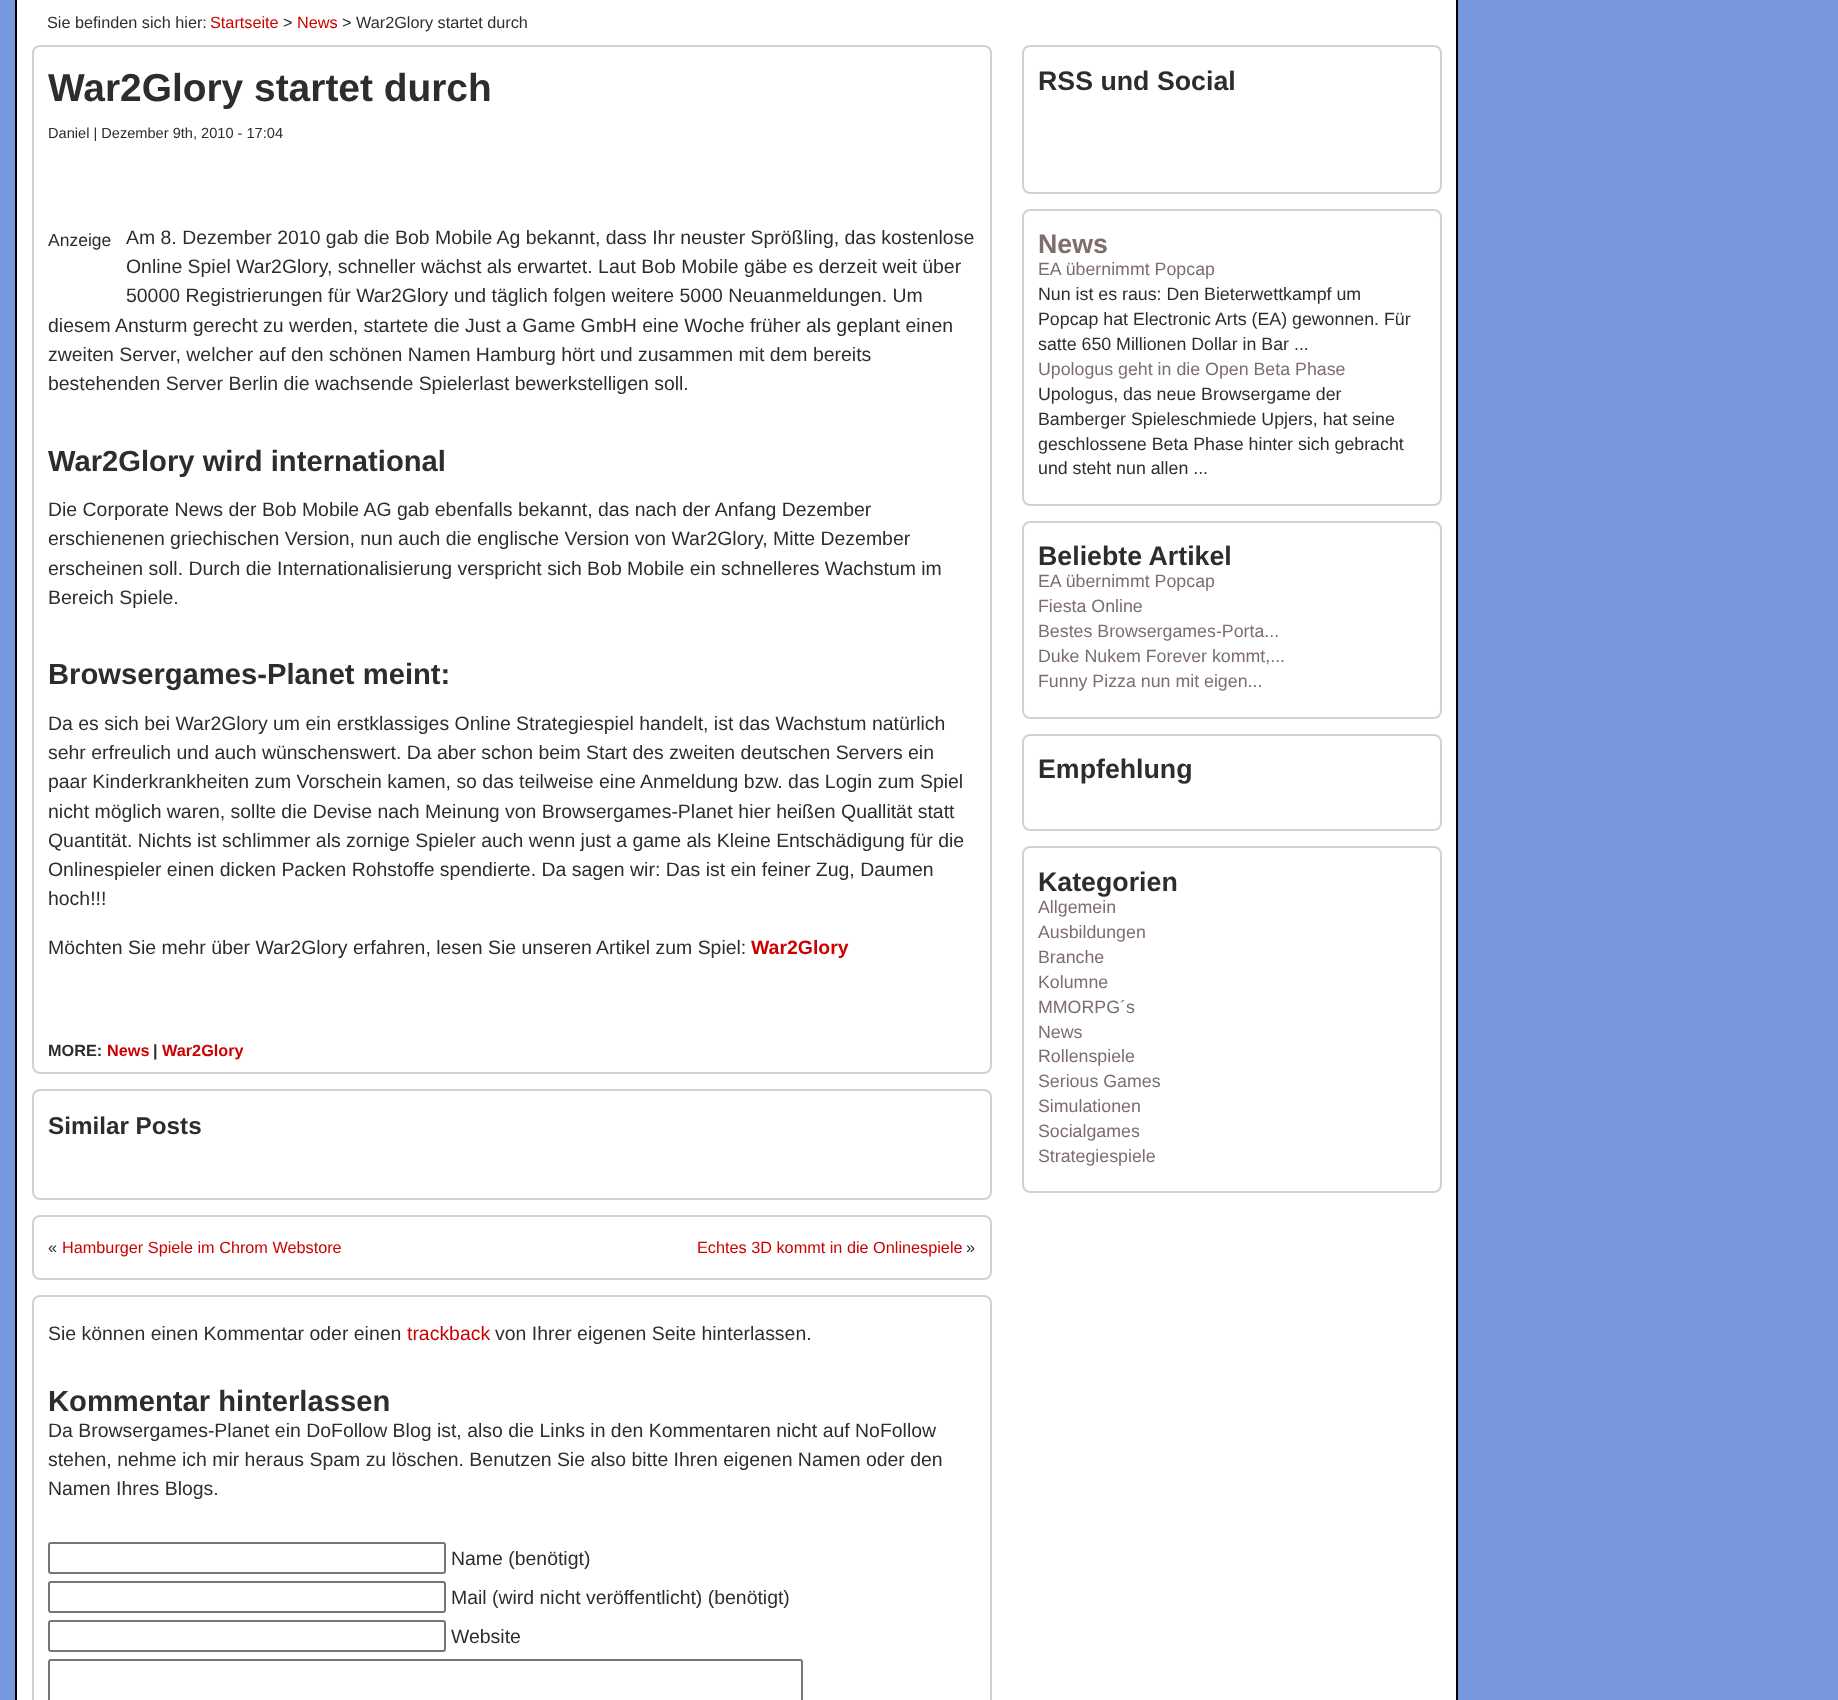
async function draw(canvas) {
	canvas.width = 1838;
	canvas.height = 1700;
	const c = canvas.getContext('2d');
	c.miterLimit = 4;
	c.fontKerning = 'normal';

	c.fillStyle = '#7798df';
	c.fillRect(0, 0, 1838, 1700);
	c.fillStyle = '#fff';
	c.beginPath();
	c.rect(16, -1, 1441, 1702);
	c.fill();
	c.strokeStyle = '#000';
	c.lineWidth = 2;
	c.stroke();
	c.font = '16.25px Liberation Sans';
	c.fillStyle = '#2d2d2d';
	c.fillText('Sie befinden sich hier:', 47, 28);
	c.fillStyle = '#c00';
	c.fillText('Startseite', 210, 28);
	c.fillStyle = '#2d2d2d';
	c.fillText('>', 283, 28);
	c.fillStyle = '#c00';
	c.fillText('News', 297, 28);
	c.fillStyle = '#2d2d2d';
	c.fillText('> War2Glory startet durch', 342, 28);
	c.beginPath();
	c.roundRect(33, 46, 958, 1027, 7);
	c.strokeStyle = '#d1d1d1';
	c.stroke();
	c.font = 'bold 38.9px Liberation Sans';
	c.fillText('War2Glory startet durch', 48, 101);
	c.font = '14.6px Liberation Sans';
	c.fillText('Daniel | Dezember 9th, 2010 - 17:04', 48, 138);
	c.font = '17.5px Liberation Sans';
	c.fillText('Anzeige', 48, 246);
	c.font = '19.45px Liberation Sans';
	for (const [text, x, y] of [
		['Am 8. Dezember 2010 gab die Bob Mobile Ag bekannt, dass Ihr neuster Sprößling, das kostenlose', 126, 244],
		['Online Spiel War2Glory, schneller wächst als erwartet. Laut Bob Mobile gäbe es derzeit weit über', 126, 273],
		['50000 Registrierungen für War2Glory und täglich folgen weitere 5000 Neuanmeldungen. Um', 126, 302],
		['diesem Ansturm gerecht zu werden, startete die Just a Game GmbH eine Woche früher als geplant einen', 48, 332],
		['zweiten Server, welcher auf den schönen Namen Hamburg hört und zusammen mit dem bereits', 48, 361],
		['bestehenden Server Berlin die wachsende Spielerlast bewerkstelligen soll.', 48, 390],
	]) {
		c.fillText(text, x, y);
	}
	c.font = 'bold 29.2px Liberation Sans';
	c.fillText('War2Glory wird international', 48, 471);
	c.font = '19.45px Liberation Sans';
	for (const [text, x, y] of [
		['Die Corporate News der Bob Mobile AG gab ebenfalls bekannt, das nach der Anfang Dezember', 48, 516],
		['erschienenen griechischen Version, nun auch die englische Version von War2Glory, Mitte Dezember', 48, 545],
		['erscheinen soll. Durch die Internationalisierung verspricht sich Bob Mobile ein schnelleres Wachstum im', 48, 575],
		['Bereich Spiele.', 48, 604],
	]) {
		c.fillText(text, x, y);
	}
	c.font = 'bold 29.2px Liberation Sans';
	c.fillText('Browsergames-Planet meint:', 48, 684);
	c.font = '19.45px Liberation Sans';
	for (const [text, x, y] of [
		['Da es sich bei War2Glory um ein erstklassiges Online Strategiespiel handelt, ist das Wachstum natürlich', 48, 730],
		['sehr erfreulich und auch wünschenswert. Da aber schon beim Start des zweiten deutschen Servers ein', 48, 759],
		['paar Kinderkrankheiten zum Vorschein kamen, so das teilweise eine Anmeldung bzw. das Login zum Spiel', 48, 788],
		['nicht möglich waren, sollte die Devise nach Meinung von Browsergames-Planet hier heißen Quallität statt', 48, 818],
		['Quantität. Nichts ist schlimmer als zornige Spieler auch wenn just a game als Kleine Entschädigung für die', 48, 847],
		['Onlinespieler einen dicken Packen Rohstoffe spendierte. Da sagen wir: Das ist ein feiner Zug, Daumen', 48, 876],
		['hoch!!!', 48, 905],
		['Möchten Sie mehr über War2Glory erfahren, lesen Sie unseren Artikel zum Spiel:', 48, 954],
	]) {
		c.fillText(text, x, y);
	}
	c.font = 'bold 19.45px Liberation Sans';
	c.fillStyle = '#c00';
	c.fillText('War2Glory', 751, 954);
	c.font = 'bold 16.25px Liberation Sans';
	c.fillStyle = '#2d2d2d';
	c.fillText('MORE:', 48, 1056);
	c.fillStyle = '#c00';
	c.fillText('News', 107, 1056);
	c.fillStyle = '#2d2d2d';
	c.fillText('|', 153, 1056);
	c.fillStyle = '#c00';
	c.fillText('War2Glory', 162, 1056);
	c.beginPath();
	c.roundRect(33, 1090, 958, 109, 7);
	c.stroke();
	c.font = 'bold 24.25px Liberation Sans';
	c.fillStyle = '#2d2d2d';
	c.fillText('Similar Posts', 48, 1134);
	c.beginPath();
	c.roundRect(33, 1216, 958, 63, 7);
	c.stroke();
	c.font = '16.25px Liberation Sans';
	c.fillText('«', 48, 1253);
	c.fillStyle = '#c00';
	c.fillText('Hamburger Spiele im Chrom Webstore', 62, 1253);
	c.fillText('Echtes 3D kommt in die Onlinespiele', 697, 1253);
	c.fillStyle = '#2d2d2d';
	c.fillText('»', 966, 1253);
	c.beginPath();
	c.roundRect(33, 1296, 958, 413, 7);
	c.stroke();
	c.font = '19.45px Liberation Sans';
	c.fillText('Sie können einen Kommentar oder einen', 48, 1340);
	c.fillStyle = '#c00';
	c.fillText('trackback', 407, 1340);
	c.fillStyle = '#2d2d2d';
	c.fillText('von Ihrer eigenen Seite hinterlassen.', 495, 1340);
	c.font = 'bold 29.2px Liberation Sans';
	c.fillText('Kommentar hinterlassen', 48, 1411);
	c.font = '19.45px Liberation Sans';
	for (const [text, x, y] of [
		['Da Browsergames-Planet ein DoFollow Blog ist, also die Links in den Kommentaren nicht auf NoFollow', 48, 1437],
		['stehen, nehme ich mir heraus Spam zu löschen. Benutzen Sie also bitte Ihren eigenen Namen oder den', 48, 1466],
		['Namen Ihres Blogs.', 48, 1495],
	]) {
		c.fillText(text, x, y);
	}
	c.beginPath();
	c.roundRect(49, 1543, 396, 30, 2);
	c.strokeStyle = '#767676';
	c.stroke();
	c.fillText('Name (benötigt)', 451, 1565);
	c.beginPath();
	c.roundRect(49, 1582, 396, 30, 2);
	c.stroke();
	c.fillText('Mail (wird nicht veröffentlicht) (benötigt)', 451, 1604);
	c.beginPath();
	c.roundRect(49, 1621, 396, 30, 2);
	c.stroke();
	c.fillText('Website', 451, 1643);
	c.beginPath();
	c.roundRect(49, 1660, 753, 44, 2);
	c.stroke();
	c.beginPath();
	c.roundRect(1023, 46, 418, 147, 7);
	c.strokeStyle = '#d1d1d1';
	c.stroke();
	c.font = 'bold 26.75px Liberation Sans';
	c.fillText('RSS und Social', 1038, 90);
	c.beginPath();
	c.roundRect(1023, 210, 418, 295, 7);
	c.stroke();
	c.fillStyle = '#7d6d6d';
	c.fillText('News', 1038, 253);
	c.font = '17.8px Liberation Sans';
	c.fillText('EA übernimmt Popcap', 1038, 275);
	c.fillStyle = '#2d2d2d';
	for (const [text, x, y] of [
		['Nun ist es raus: Den Bieterwettkampf um', 1038, 300],
		['Popcap hat Electronic Arts (EA) gewonnen. Für', 1038, 325],
		['satte 650 Millionen Dollar in Bar ...', 1038, 350],
	]) {
		c.fillText(text, x, y);
	}
	c.fillStyle = '#7d6d6d';
	c.fillText('Upologus geht in die Open Beta Phase', 1038, 375);
	c.fillStyle = '#2d2d2d';
	for (const [text, x, y] of [
		['Upologus, das neue Browsergame der', 1038, 400],
		['Bamberger Spieleschmiede Upjers, hat seine', 1038, 425],
		['geschlossene Beta Phase hinter sich gebracht', 1038, 450],
		['und steht nun allen ...', 1038, 474],
	]) {
		c.fillText(text, x, y);
	}
	c.beginPath();
	c.roundRect(1023, 522, 418, 196, 7);
	c.stroke();
	c.font = 'bold 26.75px Liberation Sans';
	c.fillText('Beliebte Artikel', 1038, 565);
	c.font = '17.8px Liberation Sans';
	c.fillStyle = '#7d6d6d';
	for (const [text, x, y] of [
		['EA übernimmt Popcap', 1038, 587],
		['Fiesta Online', 1038, 612],
		['Bestes Browsergames-Porta...', 1038, 637],
		['Duke Nukem Forever kommt,...', 1038, 662],
		['Funny Pizza nun mit eigen...', 1038, 687],
	]) {
		c.fillText(text, x, y);
	}
	c.beginPath();
	c.roundRect(1023, 735, 418, 95, 7);
	c.stroke();
	c.font = 'bold 26.75px Liberation Sans';
	c.fillStyle = '#2d2d2d';
	c.fillText('Empfehlung', 1038, 778);
	c.beginPath();
	c.roundRect(1023, 847, 418, 345, 7);
	c.stroke();
	c.fillText('Kategorien', 1038, 891);
	c.font = '17.8px Liberation Sans';
	c.fillStyle = '#7d6d6d';
	for (const [text, x, y] of [
		['Allgemein', 1038, 913],
		['Ausbildungen', 1038, 938],
		['Branche', 1038, 963],
		['Kolumne', 1038, 988],
		['MMORPG´s', 1038, 1013],
		['News', 1038, 1038],
		['Rollenspiele', 1038, 1062],
		['Serious Games', 1038, 1087],
		['Simulationen', 1038, 1112],
		['Socialgames', 1038, 1137],
		['Strategiespiele', 1038, 1162],
	]) {
		c.fillText(text, x, y);
	}
}

draw(document.querySelector('canvas'));
